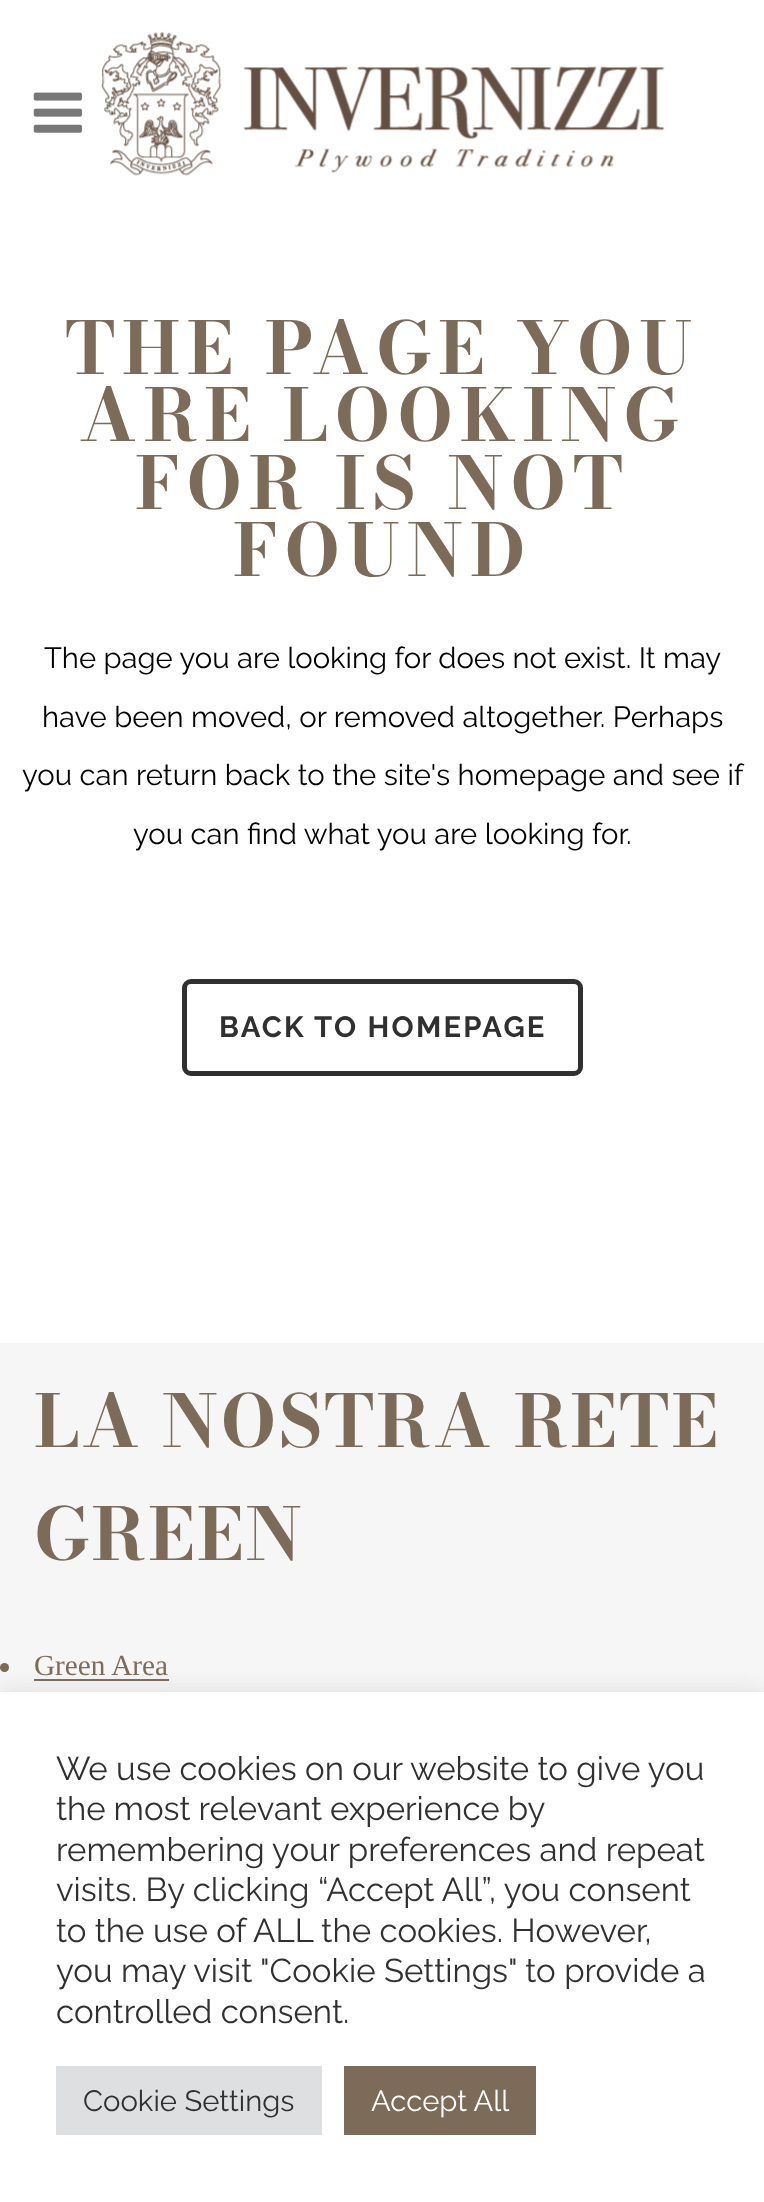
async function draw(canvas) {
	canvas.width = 764;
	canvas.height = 2202;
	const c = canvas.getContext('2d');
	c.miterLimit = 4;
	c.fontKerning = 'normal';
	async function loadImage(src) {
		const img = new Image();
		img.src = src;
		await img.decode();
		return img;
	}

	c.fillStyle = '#fff';
	c.fillRect(0, 0, 764, 2202);
	c.drawImage(await loadImage('img1.png'), 33, 92, 49, 41);
	c.drawImage(await loadImage('img2.png'), 101, 31, 564, 145);
	c.letterSpacing = '6.75px';
	c.font = 'bold 72px Bodoni Moda';
	c.fillStyle = '#7b6b58';
	for (const [text, x, y] of [
		['THE PAGE YOU', 65, 374],
		['ARE LOOKING', 79, 441],
		['FOR IS NOT', 135, 509],
		['FOUND', 233, 576],
	]) {
		c.fillText(text, x, y);
	}
	c.letterSpacing = '0px';
	c.font = '29.25px Raleway';
	c.fillStyle = '#000';
	for (const [text, x, y] of [
		['The page you are looking for does not exist. It may', 44, 668],
		['have been moved, or removed altogether. Perhaps', 42, 727],
		['you can return back to the site\'s homepage and see if', 22, 785],
		['you can find what you are looking for.', 133, 844],
	]) {
		c.fillText(text, x, y);
	}
	c.beginPath();
	c.roundRect(184.5, 981.5, 396, 92, 6.5);
	c.strokeStyle = '#303030';
	c.lineWidth = 5;
	c.stroke();
	c.letterSpacing = '2.25px';
	c.font = 'bold 29.25px Raleway';
	c.fillStyle = '#303030';
	c.fillText('BACK TO HOMEPAGE', 219, 1037);
	c.fillStyle = '#f6f6f6';
	c.fillRect(0, 1343, 764, 349);
	c.font = 'bold 72px Bodoni Moda';
	c.fillStyle = '#7b6b58';
	c.fillText('LA NOSTRA RETE', 34, 1447);
	c.fillText('GREEN', 34, 1560);
	c.fillStyle = '#7b6a58';
	c.beginPath();
	c.arc(4.5, 1667.5, 4.5, 0, 2 * Math.PI);
	c.fill();
	c.letterSpacing = '0px';
	c.font = '29.25px Liberation Serif';
	c.fillStyle = '#7b6b58';
	c.fillText('Green Area', 34, 1675);
	c.fillStyle = '#7b6a58';
	c.fillRect(34, 1679, 135, 2);
	c.fillStyle = '#acabab4d';
	c.filter = 'blur(11px)';
	c.beginPath();
	c.rect(0, 1690, 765, 511);
	c.fill();
	c.filter = 'none';
	c.fillStyle = '#fff';
	c.fillRect(0, 1692, 764, 510);
	c.font = '33px Raleway';
	c.fillStyle = '#303030';
	c.fillText('We use cookies on our website to give you', 56, 1780);
	c.wordSpacing = '-0.5px';
	c.fillText('the most relevant experience by', 56, 1820);
	c.wordSpacing = '0px';
	for (const [text, x, y] of [
		['remembering your preferences and repeat', 56, 1861],
		['visits. By clicking “Accept All”, you consent', 56, 1901],
		['to the use of ALL the cookies. However,', 56, 1942],
		['you may visit "Cookie Settings" to provide a', 56, 1982],
		['controlled consent.', 56, 2023],
	]) {
		c.fillText(text, x, y);
	}
	c.fillStyle = '#dedfe0';
	c.fillRect(56, 2066, 266, 69);
	c.font = '29.25px Raleway';
	c.fillStyle = '#303030';
	c.fillText('Cookie Settings', 83, 2111);
	c.fillStyle = '#7b6b58';
	c.fillRect(344, 2066, 192, 69);
	c.fillStyle = '#fff';
	c.fillText('Accept All', 371, 2111);
}

draw(document.querySelector('canvas'));
